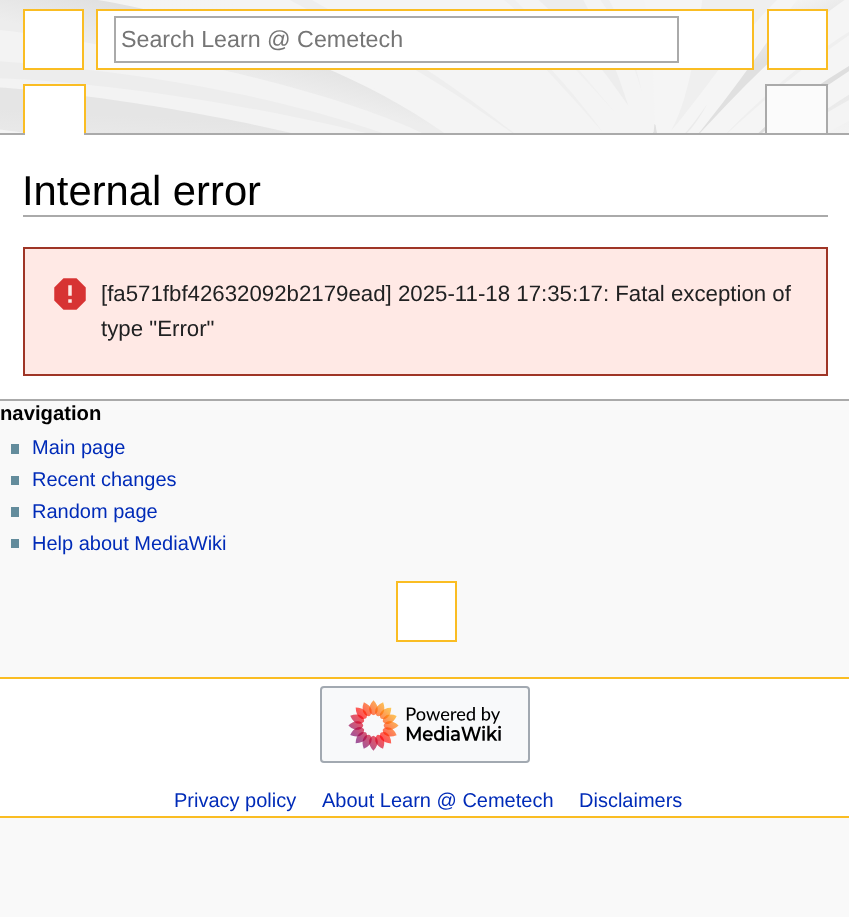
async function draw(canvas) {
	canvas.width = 849;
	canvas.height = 917;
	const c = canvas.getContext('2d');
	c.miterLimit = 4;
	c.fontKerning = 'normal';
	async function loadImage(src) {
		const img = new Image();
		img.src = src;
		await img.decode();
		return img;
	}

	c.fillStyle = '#f9f9f9';
	c.fillRect(0, 0, 849, 917);
	c.drawImage(await loadImage('img1.png'), 0, 0, 849, 133);
	c.fillStyle = '#fff';
	c.beginPath();
	c.rect(24, 10, 59, 59);
	c.fill();
	c.strokeStyle = '#fabd23';
	c.lineWidth = 2;
	c.stroke();
	c.beginPath();
	c.rect(768, 10, 59, 59);
	c.fill();
	c.stroke();
	c.beginPath();
	c.rect(97, 10, 656, 59);
	c.fill();
	c.stroke();
	c.strokeStyle = '#aaa';
	c.strokeRect(115, 17, 563, 45);
	c.font = '23.25px Liberation Sans';
	c.fillStyle = '#757575';
	c.fillText('Search Learn @ Cemetech', 121, 47);
	c.font = 'bold 20.25px Liberation Sans';
	c.fillStyle = '#000';
	c.fillText('navigation', 0, 420);
	c.fillStyle = '#638c9c';
	c.fillRect(11, 444, 8, 10);
	c.font = '20px Liberation Sans';
	c.fillStyle = '#002bb8';
	c.fillText('Main page', 32, 454);
	c.fillStyle = '#638c9c';
	c.fillRect(11, 476, 8, 9);
	c.fillStyle = '#002bb8';
	c.fillText('Recent changes', 32, 486);
	c.fillStyle = '#638c9c';
	c.fillRect(11, 507, 8, 10);
	c.fillStyle = '#002bb8';
	c.fillText('Random page', 32, 518);
	c.fillStyle = '#638c9c';
	c.fillRect(11, 539, 8, 9);
	c.fillStyle = '#002bb8';
	c.fillText('Help about MediaWiki', 32, 550);
	for (const [x, y, w, h, color] of [
		[23, 84, 63, 2, '#fabd23'],
		[84, 84, 2, 51, '#fabd23'],
		[23, 84, 2, 51, '#fabd23'],
		[765, 84, 63, 2, '#aaa'],
		[826, 84, 2, 51, '#aaa'],
		[765, 84, 2, 51, '#aaa'],
		[0, 133, 849, 2, '#aaa'],
		[25, 86, 59, 49, '#fff'],
		[767, 86, 59, 47, '#fbfbfb'],
	]) {
		c.fillStyle = color;
		c.fillRect(x, y, w, h);
	}
	c.fillStyle = '#fff';
	c.beginPath();
	c.rect(397, 582, 59, 59);
	c.fill();
	c.strokeStyle = '#fabd23';
	c.stroke();
	for (const [x, y, w, h, color] of [
		[0, 135, 849, 264, '#fff'],
		[0, 399, 849, 2, '#aaa'],
		[23, 215, 805, 2, '#aaa'],
	]) {
		c.fillStyle = color;
		c.fillRect(x, y, w, h);
	}
	c.font = '41.75px Liberation Sans';
	c.fillStyle = '#000';
	c.fillText('Internal error', 22, 205);
	c.fillStyle = '#ffe9e5';
	c.beginPath();
	c.rect(24, 248, 803, 127);
	c.fill();
	c.strokeStyle = '#9f3526';
	c.stroke();
	c.drawImage(await loadImage('img2.png'), 54, 278, 32, 32);
	c.font = '22.25px Liberation Sans';
	c.fillStyle = '#202122';
	c.fillText('[fa571fbf42632092b2179ead] 2025-11-18 17:35:17: Fatal exception of', 101, 301);
	c.fillText('type "Error"', 101, 336);
	for (const [x, y, w, h, color] of [
		[0, 679, 849, 137, '#fff'],
		[0, 677, 849, 2, '#fabd23'],
		[0, 816, 849, 2, '#fabd23'],
	]) {
		c.fillStyle = color;
		c.fillRect(x, y, w, h);
	}
	c.fillStyle = '#f8f9fa';
	c.beginPath();
	c.roundRect(321, 687, 208, 75, 3);
	c.fill();
	c.strokeStyle = '#a2a9b1';
	c.stroke();
	c.drawImage(await loadImage('img3.png'), 348, 700, 153, 51);
	c.font = '20px Liberation Sans';
	c.fillStyle = '#002bb8';
	for (const [text, x, y] of [
		['Privacy policy', 174, 807],
		['About Learn @ Cemetech', 322, 807],
		['Disclaimers', 579, 807],
	]) {
		c.fillText(text, x, y);
	}
}

draw(document.querySelector('canvas'));
